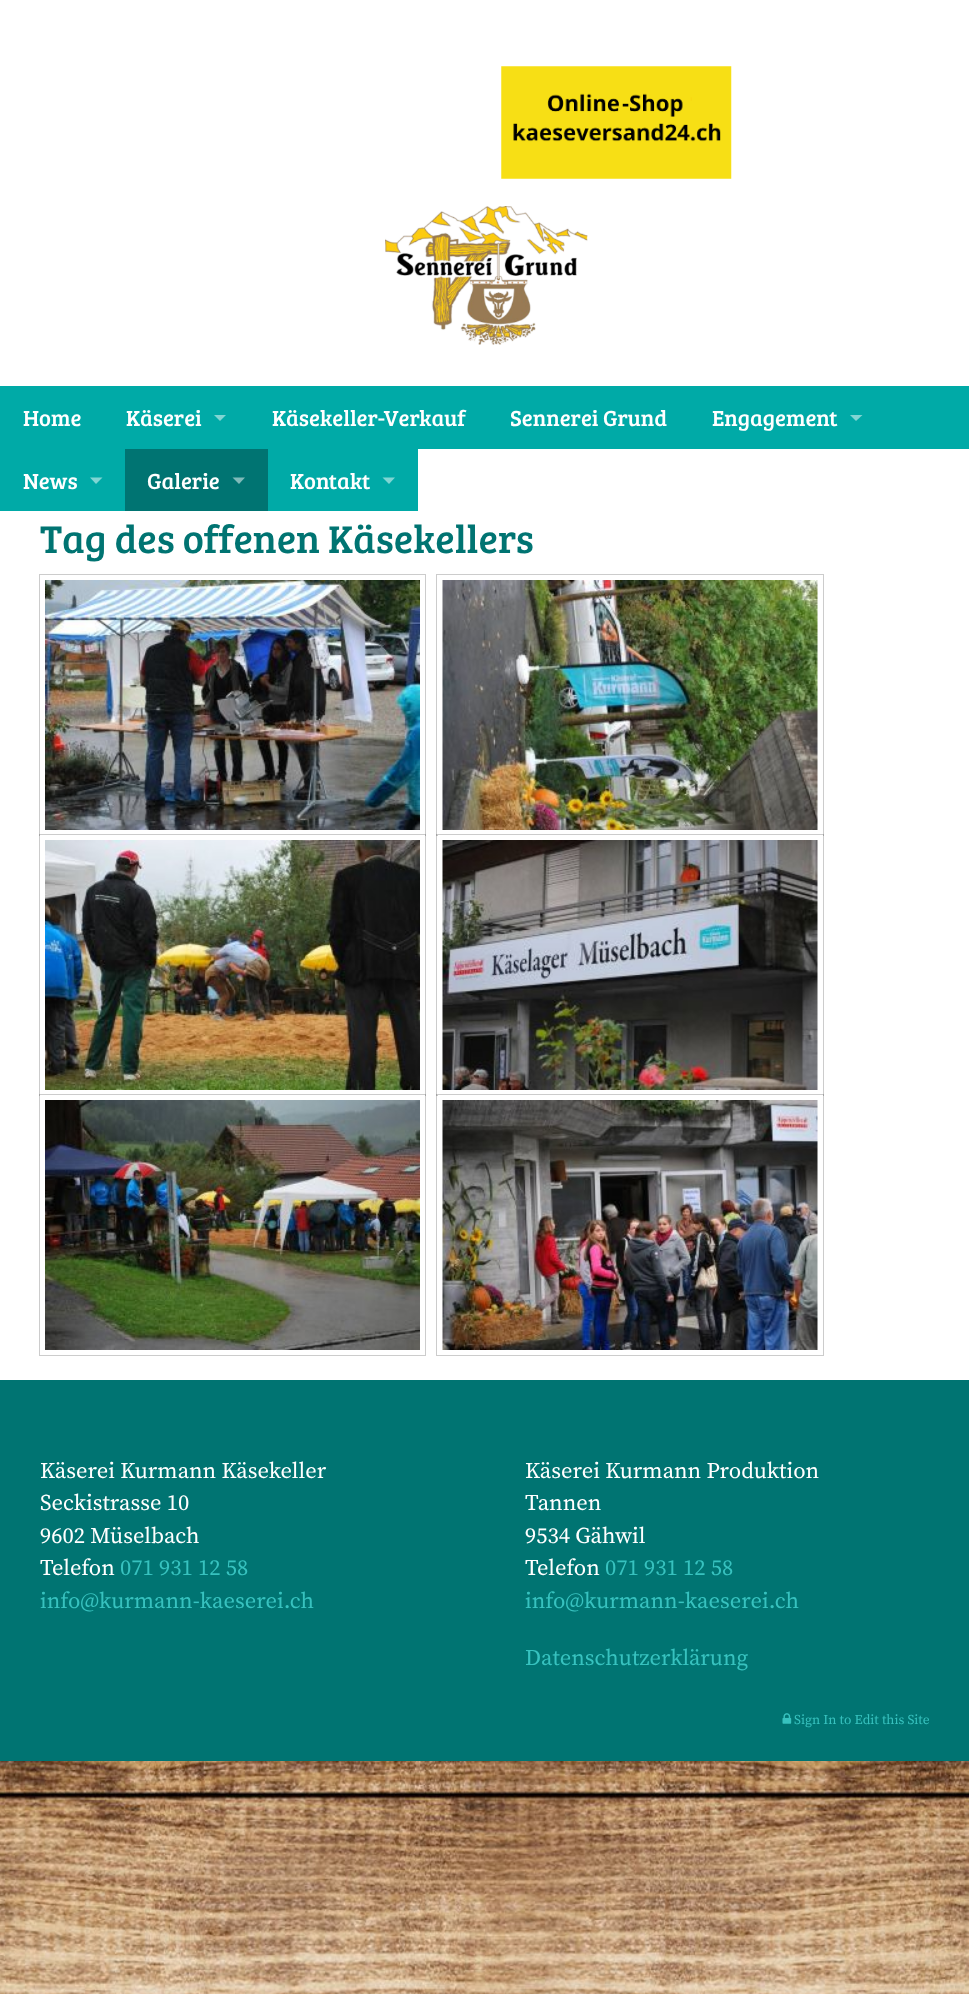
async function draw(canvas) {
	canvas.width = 969;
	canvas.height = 1994;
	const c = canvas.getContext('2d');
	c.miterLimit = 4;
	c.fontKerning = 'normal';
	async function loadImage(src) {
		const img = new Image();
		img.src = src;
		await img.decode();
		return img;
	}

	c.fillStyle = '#fff';
	c.fillRect(0, 0, 969, 1994);
	c.drawImage(await loadImage('img1.png'), 0, 1761, 969, 233);
	c.drawImage(await loadImage('img2.png'), 501, 66, 231, 113);
	c.drawImage(await loadImage('img3.png'), 385, 206, 203, 139);
	c.fillStyle = '#00aaa7';
	c.fillRect(0, 386, 969, 63);
	c.font = '22.5px Bree Serif';
	c.fillStyle = '#fff';
	c.fillText('Home', 23, 426);
	c.fillText('Käserei', 126, 426);
	c.fillStyle = '#80d5d3';
	c.beginPath();
	c.moveTo(214, 415);
	c.lineTo(226, 415);
	c.lineTo(220, 421);
	c.closePath();
	c.fill();
	c.fillStyle = '#fff';
	for (const [text, x, y] of [
		['Käsekeller-Verkauf', 272, 426],
		['Sennerei Grund', 510, 426],
		['Engagement', 712, 426],
	]) {
		c.fillText(text, x, y);
	}
	c.fillStyle = '#80d5d3';
	c.beginPath();
	c.moveTo(850, 415);
	c.lineTo(862.5, 415);
	c.lineTo(856, 421);
	c.closePath();
	c.fill();
	c.fillStyle = '#00aaa7';
	c.fillRect(0, 449, 125, 62);
	c.fillStyle = '#fff';
	c.fillText('News', 23, 489);
	c.fillStyle = '#80d5d3';
	c.beginPath();
	c.moveTo(90, 477.5);
	c.lineTo(102.5, 477.5);
	c.lineTo(96, 484);
	c.closePath();
	c.fill();
	c.fillStyle = '#007472';
	c.fillRect(125, 449, 143, 62);
	c.fillStyle = '#fff';
	c.fillText('Galerie', 147, 489);
	c.fillStyle = '#80bab9';
	c.beginPath();
	c.moveTo(232.5, 477.5);
	c.lineTo(245, 477.5);
	c.lineTo(239, 484);
	c.closePath();
	c.fill();
	c.fillStyle = '#00aaa7';
	c.fillRect(268, 449, 150, 62);
	c.fillStyle = '#fff';
	c.fillText('Kontakt', 290, 489);
	c.fillStyle = '#80d5d3';
	c.beginPath();
	c.moveTo(382.5, 477.5);
	c.lineTo(395, 477.5);
	c.lineTo(389, 484);
	c.closePath();
	c.fill();
	c.font = '40px Bree Serif';
	c.fillStyle = '#007472';
	c.fillText('Tag des offenen Käsekellers', 40, 553);
	c.strokeStyle = '#ccc';
	c.strokeRect(39.5, 574.5, 386, 261);
	c.drawImage(await loadImage('img4.png'), 45, 580, 375, 250);
	c.strokeRect(436.5, 574.5, 387, 261);
	c.drawImage(await loadImage('img5.png'), 442, 580, 376, 250);
	c.strokeStyle = '#00000033';
	c.strokeRect(39.5, 834.5, 386, 261);
	c.strokeStyle = '#fff';
	c.lineWidth = 5;
	c.strokeRect(42.5, 837.5, 380, 255);
	c.drawImage(await loadImage('img6.png'), 45, 840, 375, 250);
	c.strokeStyle = '#00000033';
	c.lineWidth = 1;
	c.strokeRect(436.5, 834.5, 387, 261);
	c.strokeStyle = '#fff';
	c.lineWidth = 5;
	c.strokeRect(440.5, 837.5, 380, 255);
	c.drawImage(await loadImage('img7.png'), 442, 840, 376, 250);
	c.strokeStyle = '#00000033';
	c.lineWidth = 1;
	c.strokeRect(39.5, 1094.5, 386, 261);
	c.strokeStyle = '#fff';
	c.lineWidth = 5;
	c.strokeRect(42.5, 1097.5, 380, 255);
	c.drawImage(await loadImage('img8.png'), 45, 1100, 375, 250);
	c.strokeStyle = '#00000033';
	c.lineWidth = 1;
	c.strokeRect(436.5, 1094.5, 387, 261);
	c.strokeStyle = '#fff';
	c.lineWidth = 5;
	c.strokeRect(440.5, 1097.5, 380, 255);
	c.drawImage(await loadImage('img9.png'), 442, 1100, 376, 250);
	c.fillRect(0, 1380, 969, 381);
	c.font = '22.5px Source Serif Pro';
	c.fillStyle = '#fff';
	for (const [text, x, y] of [
		['Käserei Kurmann Käsekeller', 40, 1478],
		['Seckistrasse 10', 40, 1510],
		['9602 Müselbach', 40, 1543],
		['Telefon', 40, 1575],
	]) {
		c.fillText(text, x, y);
	}
	c.fillStyle = '#37c2bf';
	c.fillText('071 931 12 58', 120, 1575);
	c.fillText('info@kurmann-kaeserei.ch', 40, 1608);
	c.fillStyle = '#fff';
	for (const [text, x, y] of [
		['Käserei Kurmann Produktion', 525, 1478],
		['Tannen', 525, 1510],
		['9534 Gähwil', 525, 1543],
		['Telefon', 525, 1575],
	]) {
		c.fillText(text, x, y);
	}
	c.fillStyle = '#37c2bf';
	for (const [text, x, y] of [
		['071 931 12 58', 605, 1575],
		['info@kurmann-kaeserei.ch', 525, 1608],
		['Datenschutzerklärung', 525, 1665],
	]) {
		c.fillText(text, x, y);
	}
	c.drawImage(await loadImage('img10.png'), 782, 1713, 10, 11);
	c.font = '13.5px Source Serif Pro';
	c.fillText('Sign In to Edit this Site', 794, 1724);
}

draw(document.querySelector('canvas'));
